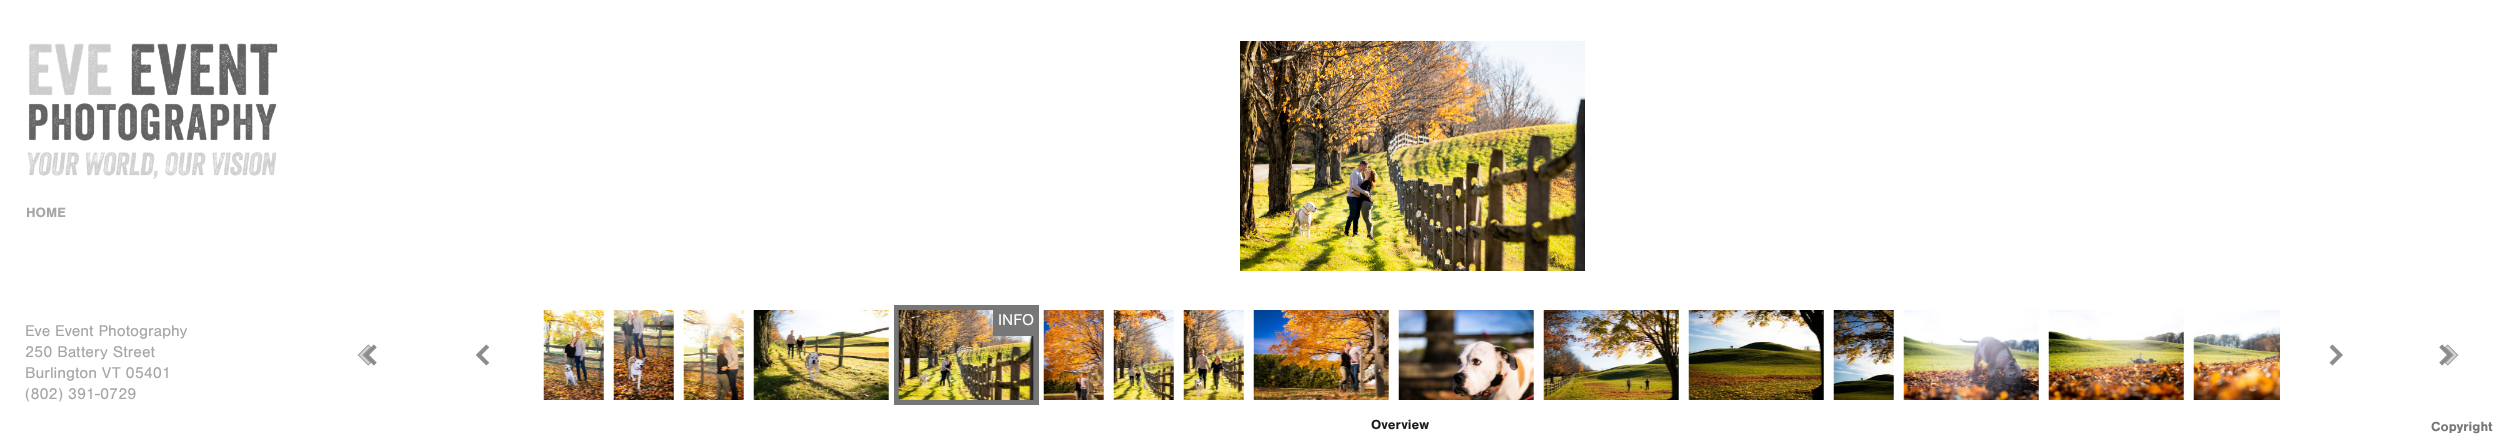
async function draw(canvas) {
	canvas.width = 2504;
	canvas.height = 448;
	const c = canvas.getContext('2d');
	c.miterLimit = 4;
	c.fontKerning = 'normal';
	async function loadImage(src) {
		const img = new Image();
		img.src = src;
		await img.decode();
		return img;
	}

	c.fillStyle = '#fff';
	c.fillRect(0, 0, 2504, 448);
	c.drawImage(await loadImage('img1.png'), 1240, 41, 345, 230);
	c.drawImage(await loadImage('img2.png'), 27, 43, 251, 136);
	c.font = 'bold 14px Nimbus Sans';
	c.fillStyle = '#a6a6a6';
	c.fillText('HOME', 26, 217);
	c.font = '16.25px Nimbus Sans';
	for (const [text, x, y] of [
		['Eve Event Photography', 25, 336],
		['250 Battery Street', 25, 357],
		['Burlington VT 05401', 25, 378],
		['(802) 391-0729', 25, 399],
	]) {
		c.fillText(text, x, y);
	}
	c.drawImage(await loadImage('img3.png'), 543, 310, 61, 90);
	c.drawImage(await loadImage('img4.png'), 613, 310, 61, 90);
	c.drawImage(await loadImage('img5.png'), 683, 310, 61, 90);
	c.drawImage(await loadImage('img6.png'), 753, 310, 136, 90);
	c.strokeStyle = '#777';
	c.lineWidth = 5;
	c.strokeRect(896.5, 307.5, 140, 95);
	c.drawImage(await loadImage('img7.png'), 898, 310, 136, 90);
	c.fillStyle = '#777';
	c.fillRect(993, 310, 41, 26);
	c.fillStyle = '#fff';
	c.fillText('INFO', 998, 325);
	c.drawImage(await loadImage('img8.png'), 1043, 310, 61, 90);
	c.drawImage(await loadImage('img9.png'), 1113, 310, 61, 90);
	c.drawImage(await loadImage('img10.png'), 1183, 310, 61, 90);
	c.drawImage(await loadImage('img11.png'), 1253, 310, 136, 90);
	c.drawImage(await loadImage('img12.png'), 1398, 310, 136, 90);
	c.drawImage(await loadImage('img13.png'), 1543, 310, 136, 90);
	c.drawImage(await loadImage('img14.png'), 1688, 310, 136, 90);
	c.drawImage(await loadImage('img15.png'), 1833, 310, 61, 90);
	c.drawImage(await loadImage('img16.png'), 1903, 310, 136, 90);
	c.drawImage(await loadImage('img17.png'), 2048, 310, 136, 90);
	c.drawImage(await loadImage('img18.png'), 2193, 310, 87, 90);
	c.drawImage(await loadImage('img19.png'), 357, 344, 20, 22);
	c.drawImage(await loadImage('img20.png'), 476, 344, 14, 22);
	c.drawImage(await loadImage('img21.png'), 2329, 344, 14, 22);
	c.drawImage(await loadImage('img22.png'), 2439, 344, 20, 22);
	c.font = 'bold 13.75px Nimbus Sans';
	c.fillStyle = '#1b1b1b';
	c.fillText('Overview', 1371, 429);
	c.fillStyle = '#767676';
	c.fillText('Copyright', 2431, 431);
}

draw(document.querySelector('canvas'));
